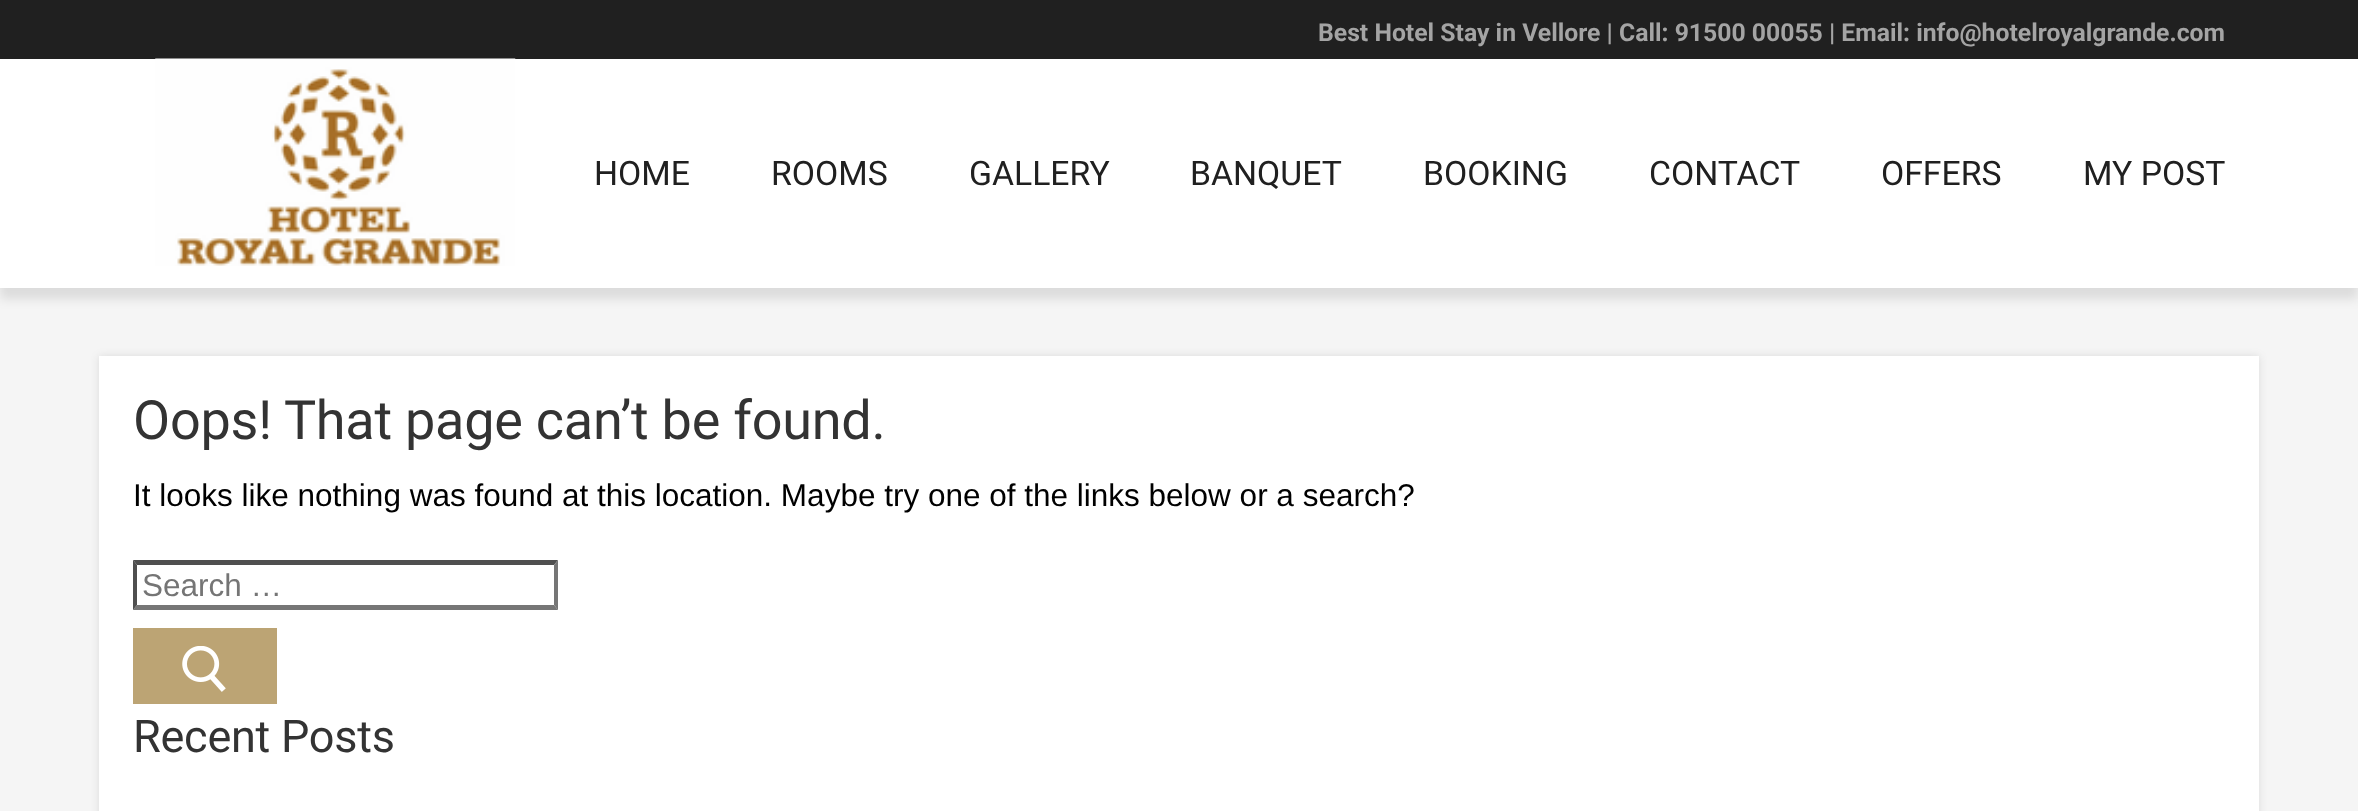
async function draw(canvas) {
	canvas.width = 2358;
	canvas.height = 811;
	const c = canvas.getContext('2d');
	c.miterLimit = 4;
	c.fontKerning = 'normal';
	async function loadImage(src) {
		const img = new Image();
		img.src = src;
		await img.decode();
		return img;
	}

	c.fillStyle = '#f5f5f5';
	c.fillRect(0, 0, 2358, 811);
	c.fillStyle = '#202020';
	c.fillRect(0, 0, 2358, 59);
	c.font = 'bold 24.75px Roboto';
	c.fillStyle = '#a4a4a4';
	c.fillText('Best Hotel Stay in Vellore | Call: 91500 00055 | Email: info@hotelroyalgrande.com', 1318, 41);
	c.fillStyle = '#0000001a';
	c.filter = 'blur(5.5px)';
	c.beginPath();
	c.rect(0, 70, 2358, 229);
	c.fill();
	c.filter = 'none';
	c.fillStyle = '#fff';
	c.fillRect(0, 59, 2358, 229);
	c.drawImage(await loadImage('img1.png'), 155, 58, 361, 208);
	c.font = '33.75px Roboto';
	c.fillStyle = '#202020';
	for (const [text, x, y] of [
		['HOME', 594, 185],
		['ROOMS', 771, 185],
		['GALLERY', 969, 185],
		['BANQUET', 1190, 185],
		['BOOKING', 1423, 185],
		['CONTACT', 1649, 185],
		['OFFERS', 1881, 185],
		['MY POST', 2083, 185],
	]) {
		c.fillText(text, x, y);
	}
	c.fillStyle = '#0000001a';
	c.filter = 'blur(4.5px)';
	c.beginPath();
	c.rect(99, 356, 2160, 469);
	c.fill();
	c.filter = 'none';
	c.fillStyle = '#fff';
	c.fillRect(99, 356, 2160, 455);
	c.letterSpacing = '-0.25px';
	c.font = '54px Roboto';
	c.fillStyle = '#333';
	c.fillText('Oops! That page can’t be found.', 133, 439);
	c.letterSpacing = '0px';
	c.font = '31.5px Liberation Sans';
	c.fillStyle = '#000';
	c.fillText('It looks like nothing was found at this location. Maybe try one of the links below or a search?', 133, 506);
	c.fillStyle = '#4f4f4f';
	c.beginPath();
	c.moveTo(133, 560);
	c.lineTo(558, 560);
	c.lineTo(554, 565);
	c.lineTo(137, 565);
	c.closePath();
	c.fill();
	c.fillStyle = '#767676';
	c.beginPath();
	c.moveTo(558, 560);
	c.lineTo(558, 610);
	c.lineTo(554, 605);
	c.lineTo(554, 565);
	c.closePath();
	c.fill();
	c.beginPath();
	c.moveTo(558, 610);
	c.lineTo(133, 610);
	c.lineTo(137, 605);
	c.lineTo(554, 605);
	c.closePath();
	c.fill();
	c.fillStyle = '#4f4f4f';
	c.beginPath();
	c.moveTo(133, 610);
	c.lineTo(133, 560);
	c.lineTo(137, 565);
	c.lineTo(137, 605);
	c.closePath();
	c.fill();
	c.fillStyle = '#757575';
	c.fillText('Search …', 142, 596);
	c.fillStyle = '#bca474';
	c.fillRect(133, 628, 144, 76);
	c.drawImage(await loadImage('img2.png'), 182, 646, 44, 46);
	c.letterSpacing = '-0.25px';
	c.font = '45px Roboto';
	c.fillStyle = '#333';
	c.fillText('Recent Posts', 133, 752);
}

draw(document.querySelector('canvas'));
